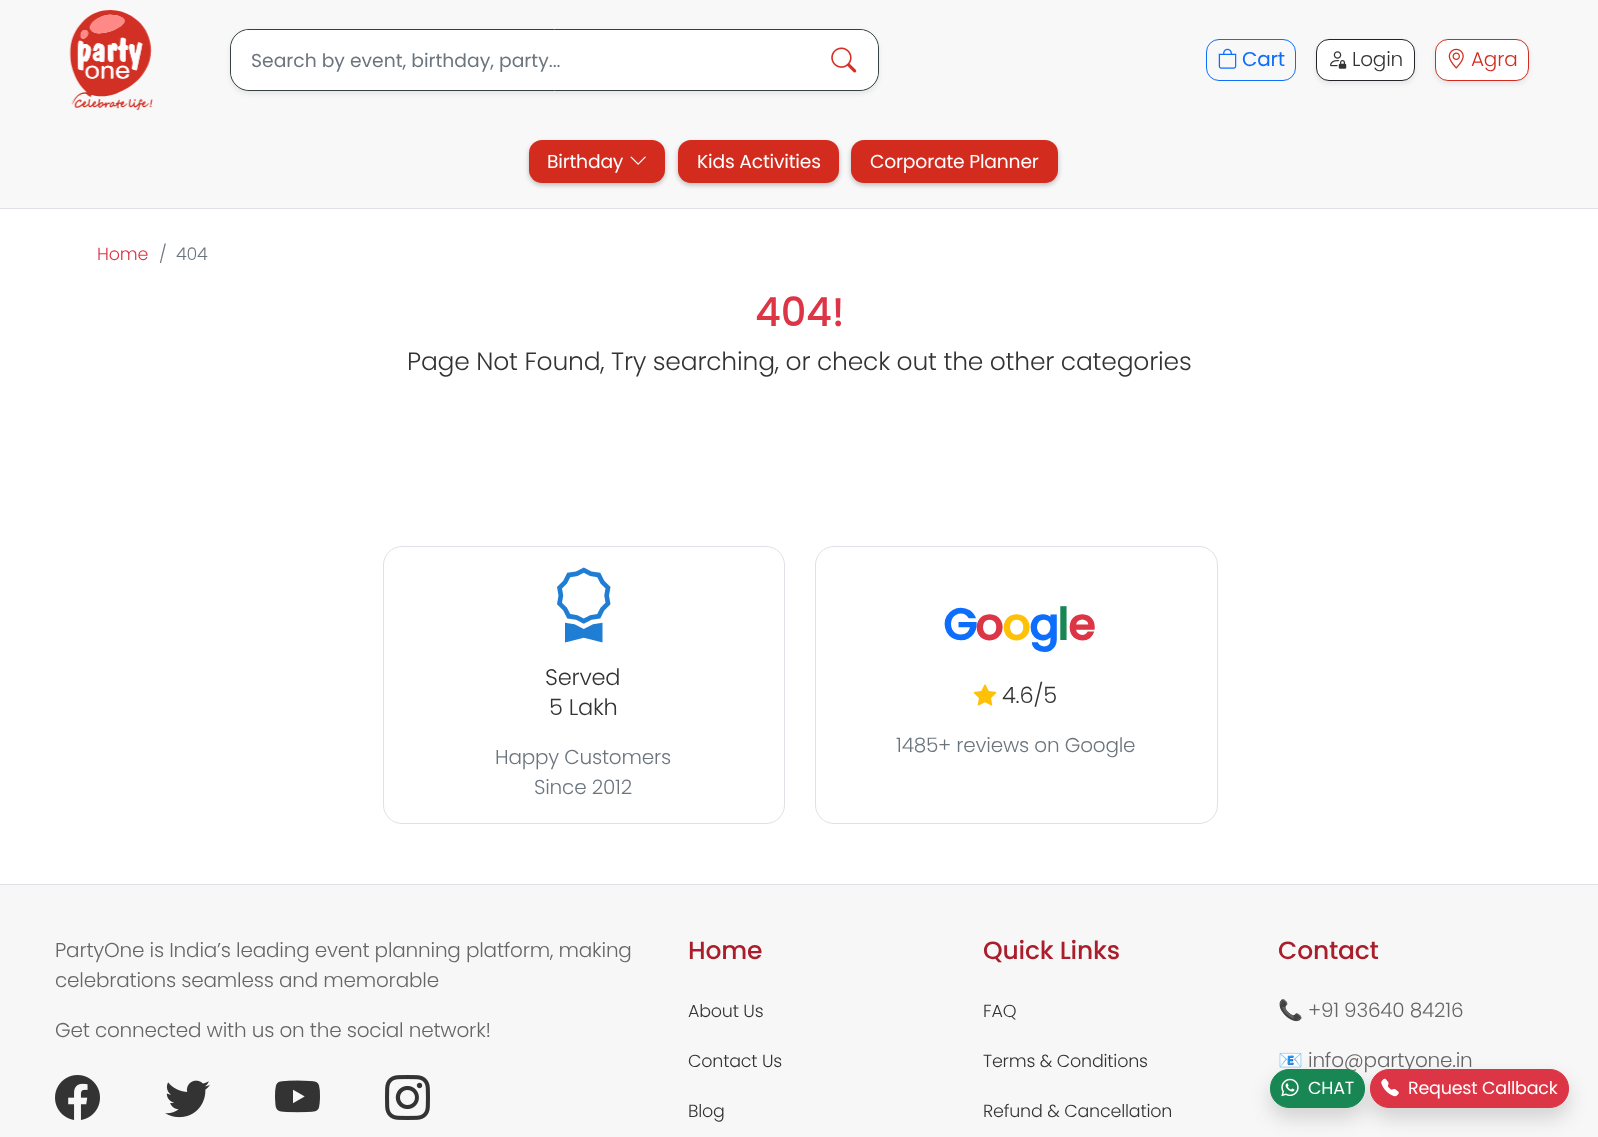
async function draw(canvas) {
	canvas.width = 1598;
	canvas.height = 1137;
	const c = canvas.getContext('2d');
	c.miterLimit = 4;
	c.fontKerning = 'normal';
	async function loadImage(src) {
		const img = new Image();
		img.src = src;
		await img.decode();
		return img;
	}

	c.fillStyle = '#fff';
	c.fillRect(0, 0, 1598, 1137);
	c.fillStyle = '#dee2e6';
	c.fillRect(0, 208, 1598, 1);
	c.fillStyle = '#f8f8f8';
	c.fillRect(0, 0, 1598, 208);
	c.drawImage(await loadImage('img1.png'), 69, 10, 84, 100);
	c.fillStyle = '#00000012';
	c.filter = 'blur(2.5px)';
	c.beginPath();
	c.roundRect(230, 31, 649, 63, 19);
	c.fill();
	c.filter = 'none';
	c.beginPath();
	c.roundRect(230.5, 29.5, 648, 61, 18.5);
	c.strokeStyle = '#344142';
	c.stroke();
	c.fillStyle = '#fff';
	c.beginPath();
	c.roundRect(231, 30, 580, 60, [19, 0, 0, 19]);
	c.fill();
	c.font = '18.75px Poppins';
	c.fillStyle = '#6c757d';
	c.fillText('Search by event, birthday, party...', 251, 67);
	c.fillStyle = '#fff';
	c.beginPath();
	c.roundRect(810, 30, 68, 60, [0, 19, 19, 0]);
	c.fill();
	c.drawImage(await loadImage('img2.png'), 831, 47, 26, 26);
	c.beginPath();
	c.roundRect(1206.5, 39.5, 89, 41, 12.5);
	c.strokeStyle = '#0d6efd';
	c.stroke();
	c.drawImage(await loadImage('img3.png'), 1218, 48, 19, 21);
	c.letterSpacing = '-0.2px';
	c.font = '20px Poppins';
	c.fillStyle = '#0d6efd';
	c.fillText('Cart', 1242, 66);
	c.fillStyle = '#00000012';
	c.filter = 'blur(2.5px)';
	c.beginPath();
	c.roundRect(1316, 41, 99, 43, 13);
	c.fill();
	c.filter = 'none';
	c.fillStyle = '#fff';
	c.beginPath();
	c.roundRect(1316.5, 39.5, 98, 41, 12.5);
	c.fill();
	c.strokeStyle = '#212529';
	c.stroke();
	c.drawImage(await loadImage('img4.png'), 1330, 51, 17, 18);
	c.font = '300 20px Poppins';
	c.fillStyle = '#333';
	c.fillText('Login', 1352, 66);
	c.fillStyle = '#00000012';
	c.filter = 'blur(2.5px)';
	c.beginPath();
	c.roundRect(1435, 41, 94, 43, 13);
	c.fill();
	c.filter = 'none';
	c.fillStyle = '#fff';
	c.beginPath();
	c.roundRect(1435.5, 39.5, 93, 41, 12.5);
	c.fill();
	c.strokeStyle = '#d32c1f';
	c.stroke();
	c.drawImage(await loadImage('img5.png'), 1448, 48, 16, 21);
	c.fillStyle = '#d32c1f';
	c.fillText('Agra', 1471, 66);
	c.fillStyle = '#00000040';
	c.filter = 'blur(2.5px)';
	c.beginPath();
	c.roundRect(529, 143, 136, 42, 13);
	c.fill();
	c.filter = 'none';
	c.fillStyle = '#d32c1f';
	c.beginPath();
	c.roundRect(529, 140, 136, 43, 13);
	c.fill();
	c.font = '18.75px Poppins';
	c.fillStyle = '#fff';
	c.fillText('Birthday', 547, 168);
	c.drawImage(await loadImage('img6.png'), 630, 156, 16, 9);
	c.fillStyle = '#00000040';
	c.filter = 'blur(2.5px)';
	c.beginPath();
	c.roundRect(678, 143, 161, 42, 13);
	c.fill();
	c.filter = 'none';
	c.fillStyle = '#d32c1f';
	c.beginPath();
	c.roundRect(678, 140, 161, 43, 13);
	c.fill();
	c.fillStyle = '#fff';
	c.fillText('Kids Activities', 697, 168);
	c.fillStyle = '#00000040';
	c.filter = 'blur(2.5px)';
	c.beginPath();
	c.roundRect(851, 143, 207, 42, 13);
	c.fill();
	c.filter = 'none';
	c.fillStyle = '#d32c1f';
	c.beginPath();
	c.roundRect(851, 140, 207, 43, 13);
	c.fill();
	c.fillStyle = '#fff';
	c.fillText('Corporate Planner', 870, 168);
	c.font = '300 17.5px Poppins';
	c.fillStyle = '#dc3545';
	c.fillText('Home', 97, 260);
	c.fillStyle = '#6c757d';
	c.fillText('/', 159, 260);
	c.fillText('404', 176, 260);
	c.font = '500 40px Poppins';
	c.fillStyle = '#dc3545';
	c.fillText('404!', 755, 326);
	c.font = '300 25px Poppins';
	c.fillStyle = '#333';
	c.fillText('Page Not Found, Try searching, or check out the other categories', 407, 370);
	c.beginPath();
	c.roundRect(383.5, 546.5, 401, 277, 18.5);
	c.strokeStyle = '#dee2e6';
	c.stroke();
	c.drawImage(await loadImage('img7.png'), 557, 567, 54, 76);
	c.font = '300 22.5px Poppins';
	c.fillText('Served', 545, 685);
	c.fillText('5 Lakh', 549, 715);
	c.font = '300 20px Poppins';
	c.fillStyle = '#6c757d';
	c.fillText('Happy Customers', 495, 764);
	c.fillText('Since 2012', 534, 794);
	c.beginPath();
	c.roundRect(815.5, 546.5, 402, 277, 18.5);
	c.stroke();
	c.letterSpacing = '-6px';
	c.font = 'bold 44px Poppins';
	c.fillStyle = '#0d6efd';
	c.fillText('G', 943, 640);
	c.fillStyle = '#dc3545';
	c.fillText('o', 975, 640);
	c.fillStyle = '#ffc107';
	c.fillText('o', 1002, 640);
	c.fillStyle = '#0d6efd';
	c.fillText('g', 1029, 640);
	c.fillStyle = '#198754';
	c.fillText('l', 1057, 640);
	c.fillStyle = '#dc3545';
	c.fillText('e', 1068, 640);
	c.drawImage(await loadImage('img8.png'), 973, 684, 24, 22);
	c.letterSpacing = '-0.2px';
	c.font = '300 22.5px Poppins';
	c.fillStyle = '#333';
	c.fillText('4.6/5', 1002, 703);
	c.font = '300 20px Poppins';
	c.fillStyle = '#6c757d';
	c.fillText('1485+ reviews on Google', 896, 752);
	c.fillStyle = '#f7f7f7';
	c.fillRect(0, 885, 1598, 252);
	c.fillStyle = '#dee2e6';
	c.fillRect(0, 884, 1598, 1);
	c.fillStyle = '#666';
	for (const [text, x, y] of [
		['PartyOne is India’s leading event planning platform, making', 55, 957],
		['celebrations seamless and memorable', 55, 987],
		['Get connected with us on the social network!', 55, 1037],
	]) {
		c.fillText(text, x, y);
	}
	c.drawImage(await loadImage('img9.png'), 55, 1075, 45, 45);
	c.drawImage(await loadImage('img10.png'), 165, 1080, 45, 38);
	c.drawImage(await loadImage('img11.png'), 275, 1080, 45, 33);
	c.drawImage(await loadImage('img12.png'), 385, 1075, 45, 45);
	c.font = '500 25px Poppins';
	c.fillStyle = '#aa1d2b';
	c.fillText('Home', 688, 959);
	c.font = '300 17.5px Poppins';
	c.fillStyle = '#333';
	for (const [text, x, y] of [
		['About Us', 688, 1017],
		['Contact Us', 688, 1067],
		['Blog', 688, 1117],
	]) {
		c.fillText(text, x, y);
	}
	c.font = '500 25px Poppins';
	c.fillStyle = '#aa1d2b';
	c.fillText('Quick Links', 983, 959);
	c.font = '300 17.5px Poppins';
	c.fillStyle = '#333';
	for (const [text, x, y] of [
		['FAQ', 983, 1017],
		['Terms & Conditions', 983, 1067],
		['Refund & Cancellation', 983, 1117],
	]) {
		c.fillText(text, x, y);
	}
	c.font = '500 25px Poppins';
	c.fillStyle = '#aa1d2b';
	c.fillText('Contact', 1278, 959);
	c.font = '20px Noto Color Emoji';
	c.fillStyle = '#666';
	c.fillText('📞', 1278, 1017);
	c.font = '300 20px Poppins';
	c.fillText('+91 93640 84216', 1308, 1017);
	c.font = '20px Noto Color Emoji';
	c.fillText('📧', 1278, 1067);
	c.font = '300 20px Poppins';
	c.fillText('info@partyone.in', 1308, 1067);
	c.fillStyle = '#00000026';
	c.filter = 'blur(10px)';
	c.beginPath();
	c.roundRect(1270, 1079, 95, 39, 19);
	c.fill();
	c.filter = 'none';
	c.fillStyle = '#198754';
	c.beginPath();
	c.roundRect(1270.5, 1069.5, 94, 38, 18.5);
	c.fill();
	c.strokeStyle = '#198754';
	c.stroke();
	c.drawImage(await loadImage('img13.png'), 1281, 1078, 18, 19);
	c.font = '17.5px Poppins';
	c.fillStyle = '#fff';
	c.fillText('CHAT', 1308, 1094);
	c.fillStyle = '#00000026';
	c.filter = 'blur(10px)';
	c.beginPath();
	c.roundRect(1370, 1079, 199, 39, 19);
	c.fill();
	c.filter = 'none';
	c.fillStyle = '#dc3545';
	c.beginPath();
	c.roundRect(1370.5, 1069.5, 198, 38, 18.5);
	c.fill();
	c.strokeStyle = '#dc3545';
	c.stroke();
	c.drawImage(await loadImage('img14.png'), 1381, 1078, 18, 19);
	c.fillStyle = '#fff';
	c.fillText('Request Callback', 1408, 1094);
}

draw(document.querySelector('canvas'));
